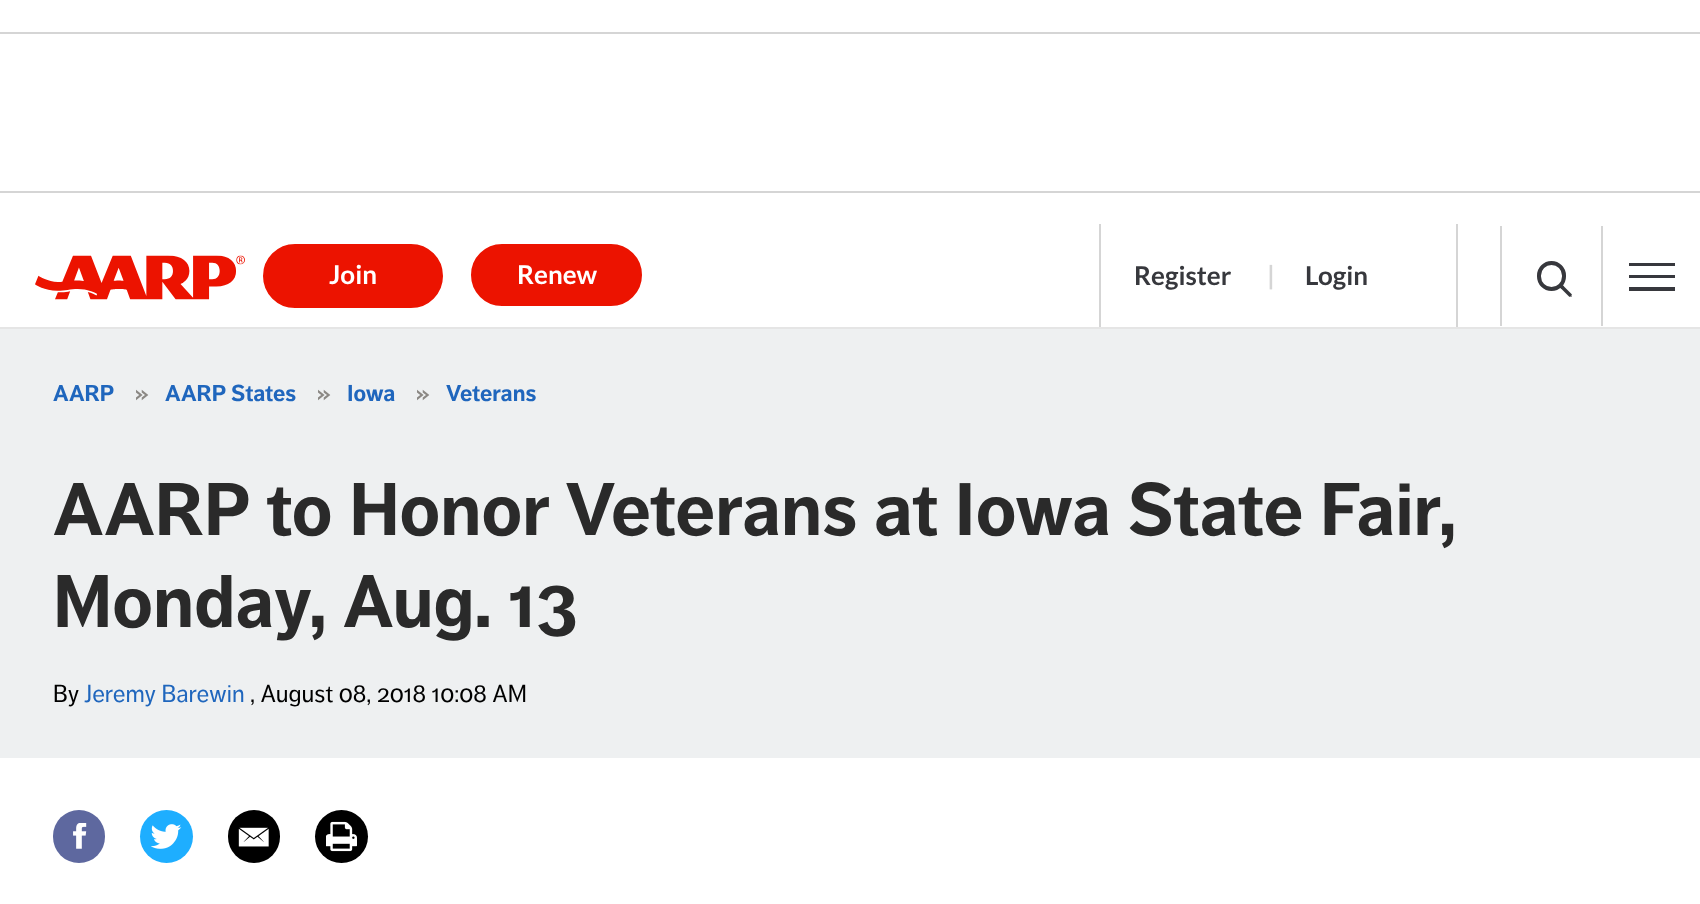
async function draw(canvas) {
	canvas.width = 1700;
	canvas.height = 904;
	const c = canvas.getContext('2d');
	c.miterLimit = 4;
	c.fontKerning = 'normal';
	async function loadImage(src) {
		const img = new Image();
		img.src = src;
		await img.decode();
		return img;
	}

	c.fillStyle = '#fff';
	c.fillRect(0, 0, 1700, 904);
	for (const [x, y, w, h, color] of [
		[0, 32, 1700, 2, '#d5d5d5'],
		[0, 191, 1700, 2, '#d5d5d5'],
		[0, 327, 1700, 2, '#e5e5e5'],
	]) {
		c.fillStyle = color;
		c.fillRect(x, y, w, h);
	}
	c.drawImage(await loadImage('img1.png'), 35, 255, 210, 45);
	c.fillStyle = '#ec1300';
	c.beginPath();
	c.roundRect(262, 243, 182, 66, 33);
	c.fill();
	c.strokeStyle = '#fff';
	c.lineWidth = 2;
	c.stroke();
	c.font = 'bold 26px Lato';
	c.fillStyle = '#fff';
	c.fillText('Join', 329, 284);
	c.fillStyle = '#ec1300';
	c.beginPath();
	c.roundRect(470, 243, 173, 64, 32);
	c.fill();
	c.stroke();
	c.fillStyle = '#fff';
	c.fillText('Renew', 517, 284);
	c.fillStyle = '#d5d5d5';
	c.fillRect(1099, 224, 2, 103);
	c.fillStyle = '#37383d';
	c.fillText('Register', 1134, 285);
	c.fillStyle = '#d5d5d5';
	c.fillText('|', 1267, 285);
	c.fillRect(1456, 224, 2, 103);
	c.fillStyle = '#37383d';
	c.fillText('Login', 1305, 285);
	c.fillStyle = '#d5d5d5';
	c.fillRect(1601, 226, 2, 100);
	c.fillRect(1500, 226, 2, 100);
	c.beginPath();
	c.roundRect(1539, 263, 25, 26, 12.5);
	c.strokeStyle = '#37383d';
	c.lineWidth = 4;
	c.stroke();
	c.fillStyle = '#37383d';
	c.beginPath();
	c.moveTo(1561.5, 284);
	c.lineTo(1572, 294.5);
	c.lineTo(1569.5, 297);
	c.lineTo(1559, 286.5);
	c.closePath();
	c.fill();
	c.beginPath();
	c.moveTo(1569.5, 293.5);
	c.lineTo(1572, 296);
	c.lineTo(1571, 297);
	c.lineTo(1568.5, 294.5);
	c.closePath();
	c.moveTo(1561.5, 284);
	c.lineTo(1564, 286.5);
	c.lineTo(1561.5, 289);
	c.lineTo(1559, 286.5);
	c.closePath();
	c.fill();
	for (const [x, y, w, h, color] of [
		[1629, 263, 46, 3, '#37383d'],
		[1629, 275, 46, 3, '#37383d'],
		[1629, 287, 46, 4, '#37383d'],
		[0, 329, 1700, 429, '#eef0f1'],
	]) {
		c.fillStyle = color;
		c.fillRect(x, y, w, h);
	}
	c.font = 'bold 22.75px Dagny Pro';
	c.fillStyle = '#1f66bd';
	c.fillText('AARP', 53, 401);
	c.fillStyle = '#8b8884';
	c.fillText('»', 135, 401);
	c.fillStyle = '#1f66bd';
	c.fillText('AARP States', 165, 401);
	c.fillStyle = '#8b8884';
	c.fillText('»', 317, 401);
	c.fillStyle = '#1f66bd';
	c.fillText('Iowa', 347, 401);
	c.fillStyle = '#8b8884';
	c.fillText('»', 416, 401);
	c.fillStyle = '#1f66bd';
	c.fillText('Veterans', 446, 401);
	c.font = 'bold 73.5px Dagny Pro';
	c.fillStyle = '#2a2a2a';
	c.fillText('AARP to Honor Veterans at Iowa State Fair,', 53, 535);
	c.fillText('Monday, Aug. 13', 53, 627);
	c.font = '24.5px Dagny Pro';
	c.fillStyle = '#000';
	c.fillText('By', 53, 702);
	c.fillStyle = '#1f66bd';
	c.fillText('Jeremy Barewin', 84, 702);
	c.fillStyle = '#000';
	c.fillText(', August 08, 2018 10:08 AM', 250, 702);
	c.fillStyle = '#5e689f';
	c.beginPath();
	c.roundRect(53, 810, 52, 53, 26);
	c.fill();
	c.drawImage(await loadImage('img2.png'), 73, 823, 14, 26);
	c.fillStyle = '#1eaeff';
	c.beginPath();
	c.arc(166.5, 836.5, 26.5, 0, 2 * Math.PI);
	c.fill();
	c.drawImage(await loadImage('img3.png'), 151, 824, 31, 25);
	c.fillStyle = '#000';
	c.beginPath();
	c.roundRect(228, 810, 52, 53, 26);
	c.fill();
	c.drawImage(await loadImage('img4.png'), 238, 827, 31, 20);
	c.beginPath();
	c.arc(341.5, 836.5, 26.5, 0, 2 * Math.PI);
	c.fill();
	c.drawImage(await loadImage('img5.png'), 326, 821, 31, 31);
}

draw(document.querySelector('canvas'));
